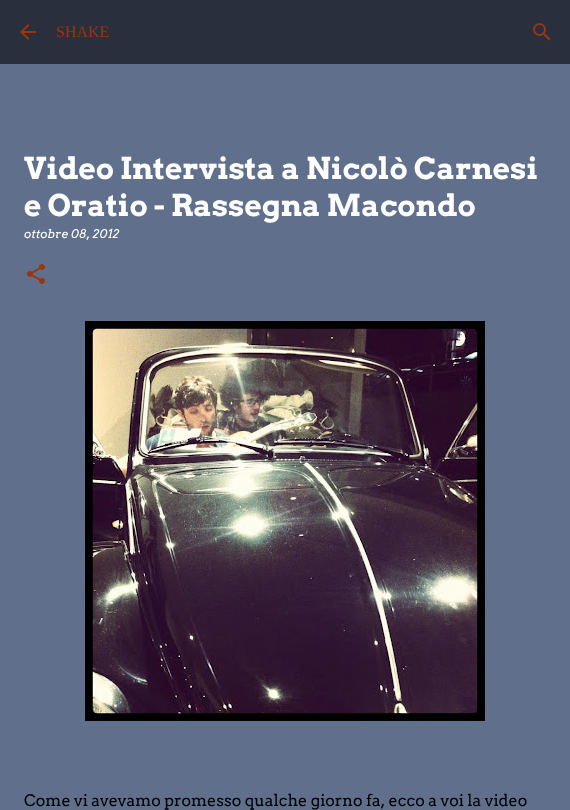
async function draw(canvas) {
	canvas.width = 570;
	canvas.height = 810;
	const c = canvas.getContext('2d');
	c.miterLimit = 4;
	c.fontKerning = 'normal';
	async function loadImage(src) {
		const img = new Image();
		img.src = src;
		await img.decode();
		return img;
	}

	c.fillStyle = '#606f8b';
	c.fillRect(0, 0, 570, 810);
	c.fillStyle = '#292f3c';
	c.fillRect(0, 0, 570, 64);
	c.drawImage(await loadImage('img1.png'), 20, 24, 16, 16);
	c.font = '16px Liberation Serif';
	c.fillStyle = '#9c350a';
	c.fillText('SHAKE', 56, 37);
	c.drawImage(await loadImage('img2.png'), 533, 23, 18, 18);
	c.font = 'bold 30px Arvo';
	c.fillStyle = '#fff';
	c.fillText('Video Intervista a Nicolò Carnesi', 24, 179);
	c.fillText('e Oratio - Rassegna Macondo', 24, 216);
	c.font = 'italic 12px Arvo';
	c.fillText('ottobre 08, 2012', 24, 238);
	c.drawImage(await loadImage('img3.png'), 27, 264, 18, 20);
	c.drawImage(await loadImage('img4.png'), 85, 321, 400, 400);
	c.font = '16px Arvo';
	c.fillStyle = '#000';
	c.fillText('Come vi avevamo promesso qualche giorno fa, ecco a voi la video', 24, 806);
}

draw(document.querySelector('canvas'));
